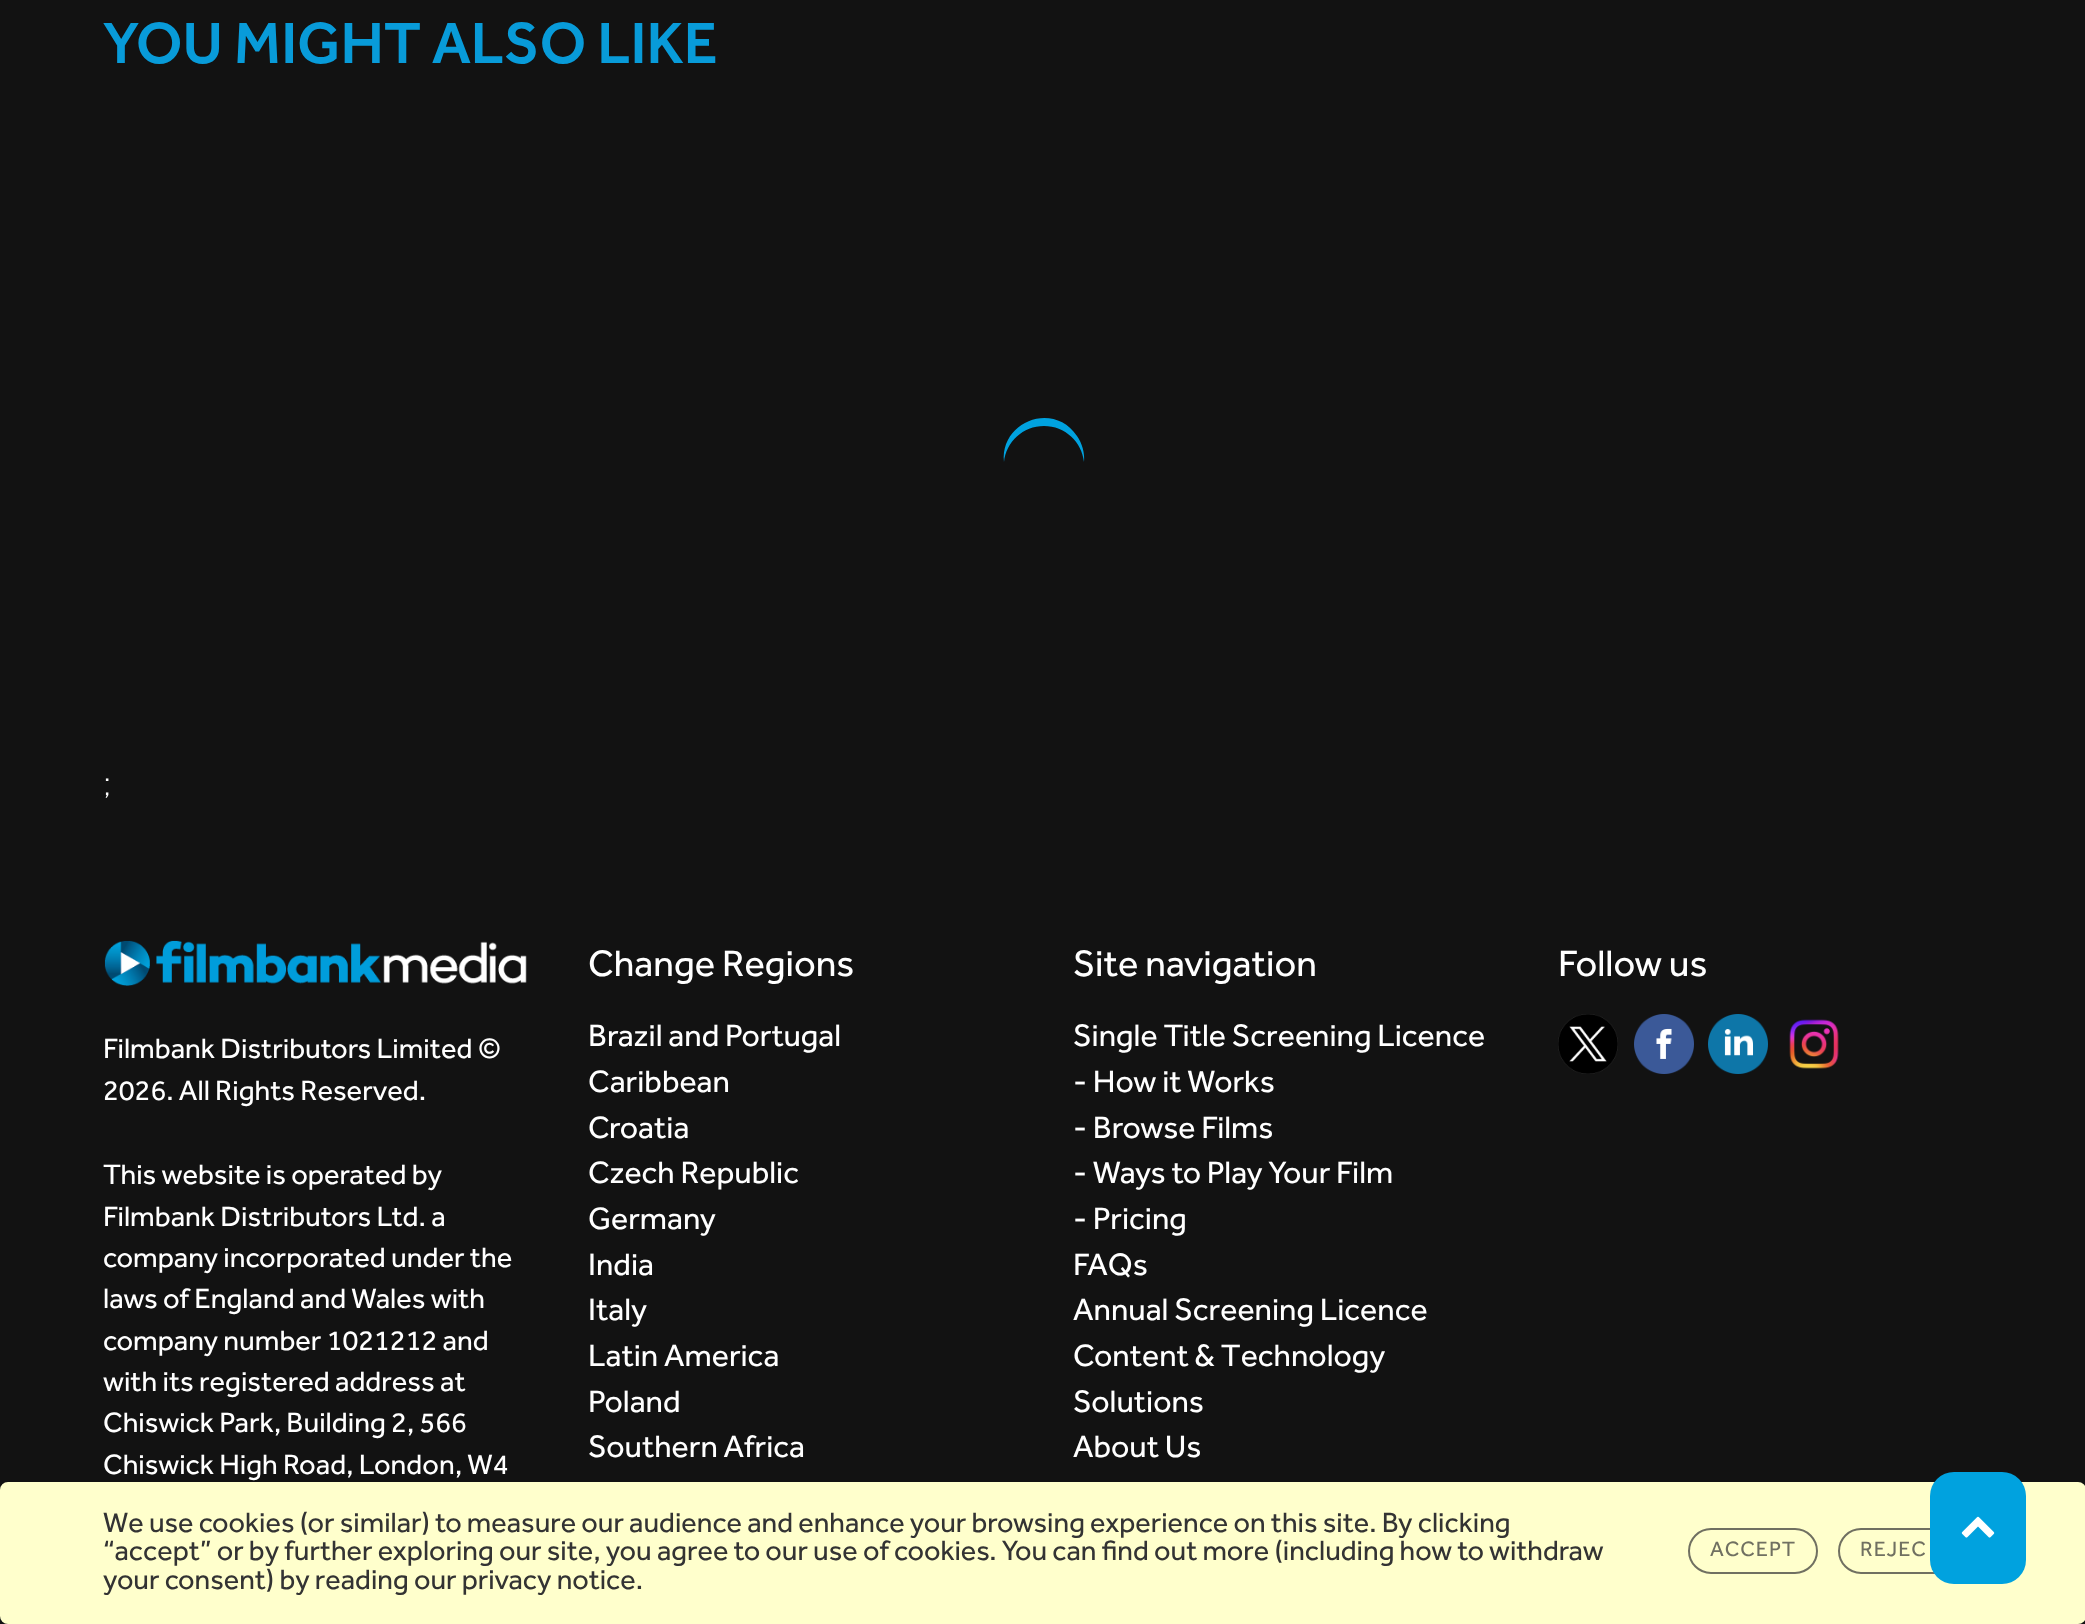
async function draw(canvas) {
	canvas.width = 2085;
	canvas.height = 1624;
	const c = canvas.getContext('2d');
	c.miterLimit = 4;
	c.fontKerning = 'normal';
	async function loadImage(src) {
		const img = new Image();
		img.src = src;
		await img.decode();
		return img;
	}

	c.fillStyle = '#121212';
	c.fillRect(0, 0, 2085, 1624);
	c.font = '500 60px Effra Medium';
	c.fillStyle = '#089bd9';
	c.fillText('YOU MIGHT ALSO LIKE', 103, 63);
	c.fillStyle = '#00a2df';
	c.beginPath();
	c.moveTo(1044, 426);
	c.bezierCurveTo(1065, 426, 1082, 442, 1084, 462);
	c.bezierCurveTo(1085, 453, 1082, 443, 1077, 436);
	c.bezierCurveTo(1054, 401, 1000, 421, 1004, 462);
	c.bezierCurveTo(1006, 442, 1023, 426, 1044, 426);
	c.closePath();
	c.fill();
	c.font = '300 36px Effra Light';
	c.fillStyle = '#fff';
	c.fillText(';', 103, 795);
	c.font = '38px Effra';
	c.fillText('Change Regions', 588, 976);
	c.font = '32px Effra';
	for (const [text, x, y] of [
		['Brazil and Portugal', 588, 1046],
		['Caribbean', 588, 1092],
		['Croatia', 588, 1138],
		['Czech Republic', 588, 1183],
		['Germany', 588, 1229],
		['India', 588, 1275],
		['Italy', 588, 1320],
		['Latin America', 588, 1366],
		['Poland', 588, 1412],
		['Southern Africa', 588, 1457],
	]) {
		c.fillText(text, x, y);
	}
	c.font = '38px Effra';
	c.fillText('Site navigation', 1073, 976);
	c.font = '32px Effra';
	for (const [text, x, y] of [
		['Single Title Screening Licence', 1073, 1046],
		['- How it Works', 1073, 1092],
		['- Browse Films', 1073, 1138],
		['- Ways to Play Your Film', 1073, 1183],
		['- Pricing', 1073, 1229],
		['FAQs', 1073, 1275],
		['Annual Screening Licence', 1073, 1320],
		['Content & Technology', 1073, 1366],
		['Solutions', 1073, 1412],
		['About Us', 1073, 1457],
	]) {
		c.fillText(text, x, y);
	}
	c.font = '38px Effra';
	c.fillText('Follow us', 1558, 976);
	c.drawImage(await loadImage('img1.png'), 1558, 1014, 60, 60);
	c.drawImage(await loadImage('img2.png'), 1634, 1014, 60, 60);
	c.drawImage(await loadImage('img3.png'), 1708, 1014, 60, 60);
	c.drawImage(await loadImage('img4.png'), 1789, 1019, 50, 50);
	c.drawImage(await loadImage('img5.png'), 104, 940, 423, 46);
	c.font = '29px Effra';
	for (const [text, x, y] of [
		['Filmbank Distributors Limited ©', 103, 1058],
		['2026. All Rights Reserved.', 103, 1100],
		['This website is operated by', 103, 1184],
		['Filmbank Distributors Ltd. a', 103, 1226],
		['company incorporated under the', 103, 1267],
		['laws of England and Wales with', 103, 1308],
		['company number 1021212 and', 103, 1350],
		['with its registered address at', 103, 1391],
		['Chiswick Park, Building 2, 566', 103, 1432],
		['Chiswick High Road, London, W4', 103, 1474],
	]) {
		c.fillText(text, x, y);
	}
	c.fillStyle = '#ffc';
	c.beginPath();
	c.roundRect(0, 1482, 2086, 142, 8);
	c.fill();
	c.font = '28.8px Effra';
	c.fillStyle = '#333';
	for (const [text, x, y] of [
		['We use cookies (or similar) to measure our audience and enhance your browsing experience on this site. By clicking', 103, 1532],
		['“accept” or by further exploring our site, you agree to our use of cookies. You can find out more (including how to withdraw', 103, 1560],
		['your consent) by reading our privacy notice.', 103, 1589],
	]) {
		c.fillText(text, x, y);
	}
	c.beginPath();
	c.roundRect(1689, 1529, 128, 44, 22);
	c.strokeStyle = '#707061';
	c.lineWidth = 2;
	c.stroke();
	c.letterSpacing = '1px';
	c.font = '21.5px Effra';
	c.fillStyle = '#707061';
	c.fillText('ACCEPT', 1710, 1556);
	c.beginPath();
	c.roundRect(1839, 1529, 124, 44, 22);
	c.stroke();
	c.fillText('REJEC', 1860, 1556);
	c.fillStyle = '#00a2df';
	c.beginPath();
	c.roundRect(1930, 1472, 96, 112, 24);
	c.fill();
	c.drawImage(await loadImage('img6.png'), 1961, 1516, 34, 22);
}

draw(document.querySelector('canvas'));
